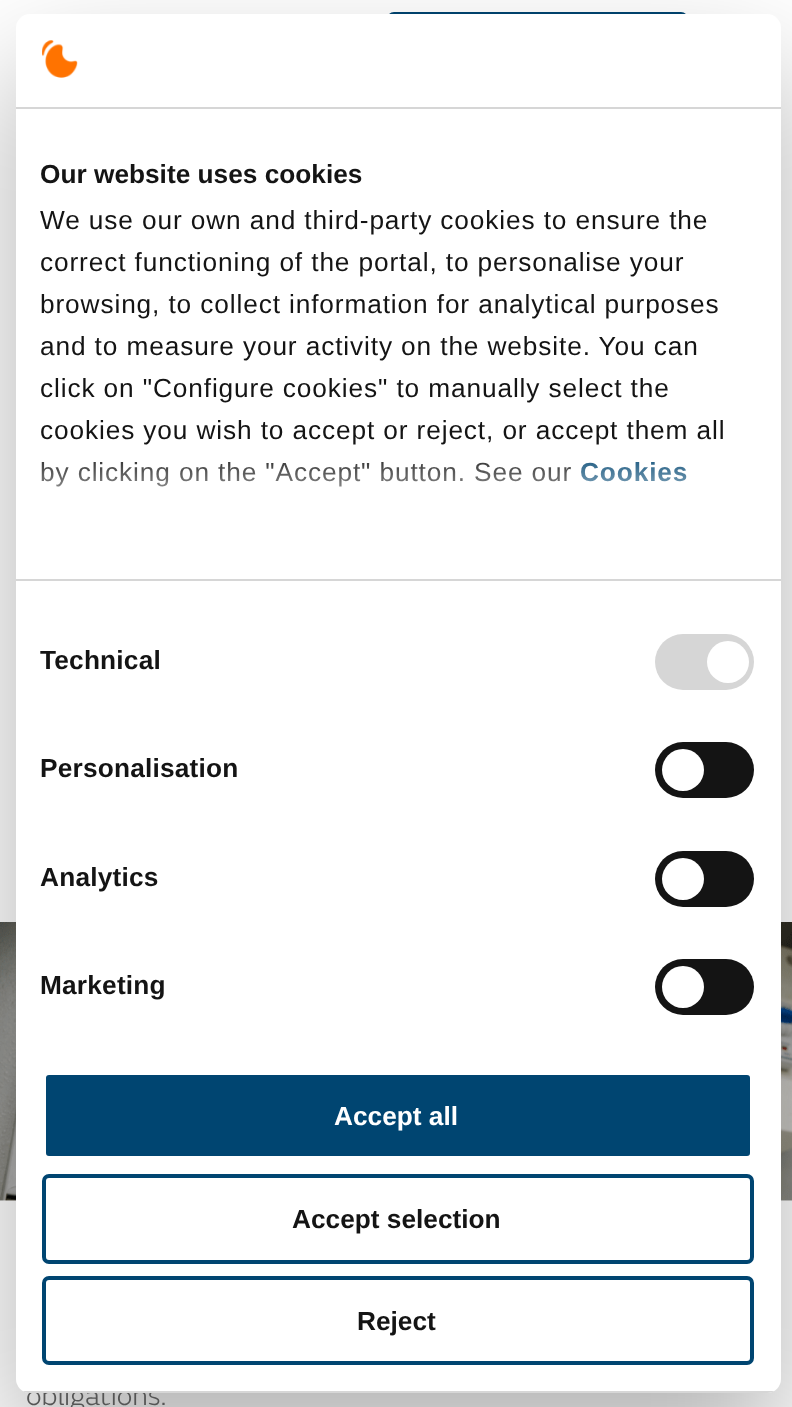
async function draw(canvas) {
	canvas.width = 792;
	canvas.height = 1407;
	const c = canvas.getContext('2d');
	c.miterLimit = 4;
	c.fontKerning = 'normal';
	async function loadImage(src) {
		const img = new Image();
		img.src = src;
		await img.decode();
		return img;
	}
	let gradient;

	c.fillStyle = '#fff';
	c.fillRect(0, 0, 792, 1407);
	c.beginPath();
	c.roundRect(388, 13, 299, 51, 6);
	c.strokeStyle = '#004571';
	c.lineWidth = 2;
	c.stroke();
	c.drawImage(await loadImage('img2.png'), 0, 922, 792, 279);
	c.fillStyle = '#0000004d';
	c.filter = 'blur(59.5px)';
	c.beginPath();
	c.roundRect(16, 70, 765, 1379, 14);
	c.fill();
	c.filter = 'none';
	c.font = '300 28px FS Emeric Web';
	c.fillStyle = '#555';
	c.fillText('obligations.', 26, 1405);
	c.fillStyle = '#fff';
	c.beginPath();
	c.roundRect(16, 14, 765, 1379, 14);
	c.fill();
	c.fillStyle = '#d6d6d6';
	c.fillRect(16, 107, 765, 2);
	c.drawImage(await loadImage('img1.png'), 42, 40, 36, 38);
	c.fillRect(16, 579, 765, 2);
	c.font = 'bold 26.25px Liberation Sans';
	c.fillStyle = '#141414';
	c.fillText('Our website uses cookies', 40, 183);
	c.letterSpacing = '0.88px';
	c.font = '26.25px Liberation Sans';
	for (const [text, x, y] of [
		['We use our own and third-party cookies to ensure the', 40, 229],
		['correct functioning of the portal, to personalise your', 40, 271],
		['browsing, to collect information for analytical purposes', 40, 313],
		['and to measure your activity on the website. You can', 40, 355],
		['click on "Configure cookies" to manually select the', 40, 397],
		['cookies you wish to accept or reject, or accept them all', 40, 439],
		['by clicking on the "Accept" button. See our', 40, 481],
	]) {
		c.fillText(text, x, y);
	}
	c.font = 'bold 26.25px Liberation Sans';
	c.fillStyle = '#004571';
	c.fillText('Cookies', 580, 481);
	gradient = c.createLinearGradient(386, 579, 386, 448);
	gradient.addColorStop(0, '#fff');
	gradient.addColorStop(0.5, '#ffffffcc');
	gradient.addColorStop(1, '#ffffff00');
	c.fillStyle = gradient;
	c.fillRect(41, 462, 646, 25);
	c.letterSpacing = '0.2px';
	c.fillStyle = '#141414';
	c.fillText('Technical', 40, 669);
	c.fillStyle = '#d6d6d6';
	c.beginPath();
	c.roundRect(655, 634, 99, 56, 28);
	c.fill();
	c.fillStyle = '#fff';
	c.beginPath();
	c.arc(728, 662, 21, 0, 2 * Math.PI);
	c.fill();
	c.fillStyle = '#141414';
	c.fillText('Personalisation', 40, 777);
	c.beginPath();
	c.roundRect(655, 742, 99, 56, 28);
	c.fill();
	c.fillStyle = '#fff';
	c.beginPath();
	c.arc(683, 770, 21, 0, 2 * Math.PI);
	c.fill();
	c.fillStyle = '#141414';
	c.fillText('Analytics', 40, 886);
	c.beginPath();
	c.roundRect(655, 851, 99, 56, 28);
	c.fill();
	c.fillStyle = '#fff';
	c.beginPath();
	c.arc(683, 879, 21, 0, 2 * Math.PI);
	c.fill();
	c.fillStyle = '#141414';
	c.fillText('Marketing', 40, 994);
	c.beginPath();
	c.roundRect(655, 959, 99, 56, 28);
	c.fill();
	c.fillStyle = '#fff';
	c.beginPath();
	c.arc(683, 987, 21, 0, 2 * Math.PI);
	c.fill();
	c.save();
	c.beginPath();
	c.roundRect(16, 14, 765, 1379, 14);
	c.clip();
	c.fillStyle = '#d6d6d6';
	c.fillRect(16, 1391, 765, 2);
	c.restore();
	c.fillStyle = '#004571';
	c.beginPath();
	c.roundRect(44, 1073, 708, 85, 5);
	c.fill();
	c.strokeStyle = '#fff';
	c.lineWidth = 4;
	c.stroke();
	c.letterSpacing = '0px';
	c.fillStyle = '#fff';
	c.fillText('Accept all', 334, 1125);
	c.beginPath();
	c.roundRect(44, 1176, 708, 86, 5);
	c.strokeStyle = '#004571';
	c.stroke();
	c.fillStyle = '#141414';
	c.fillText('Accept selection', 292, 1228);
	c.beginPath();
	c.roundRect(44, 1278, 708, 85, 5);
	c.stroke();
	c.fillText('Reject', 357, 1330);
}

draw(document.querySelector('canvas'));
